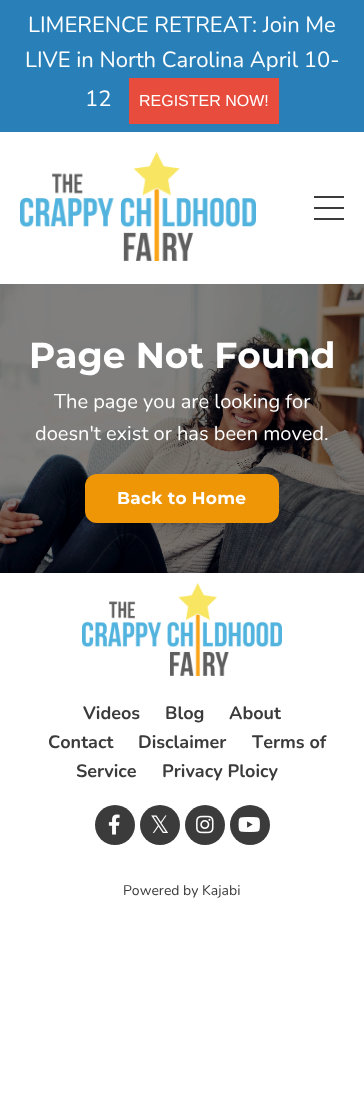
async function draw(canvas) {
	canvas.width = 364;
	canvas.height = 1108;
	const c = canvas.getContext('2d');
	c.miterLimit = 4;
	c.fontKerning = 'none';
	async function loadImage(src) {
		const img = new Image();
		img.src = src;
		await img.decode();
		return img;
	}

	c.fillStyle = '#fff';
	c.fillRect(0, 0, 364, 1108);
	c.fillStyle = '#2980b9';
	c.fillRect(0, 0, 364, 132);
	c.font = '22px Nunito';
	c.fillStyle = '#fff';
	for (const [text, x, y] of [
		['LIMERENCE RETREAT: Join Me', 28, 32],
		['LIVE in North Carolina April 10-', 25, 67],
		['12', 85, 106],
	]) {
		c.fillText(text, x, y);
	}
	c.fillStyle = '#e84c3d';
	c.fillRect(129, 78, 150, 46);
	c.font = '16px Liberation Sans';
	c.fillStyle = '#fff';
	c.fillText('REGISTER NOW!', 139, 106);
	c.drawImage(await loadImage('img1.png'), 20, 152, 236, 109);
	for (const [x, y, w, h, color] of [
		[314, 196, 30, 2, '#3b3b3b'],
		[314, 207, 30, 2, '#3b3b3b'],
		[314, 218, 30, 2, '#3b3b3b'],
	]) {
		c.fillStyle = color;
		c.fillRect(x, y, w, h);
	}
	c.drawImage(await loadImage('img2.png'), 0, 284, 364, 289);
	c.font = 'bold 36px Montserrat';
	c.fillStyle = '#fff';
	c.fillText('Page Not Found', 29, 368);
	c.font = '20px Nunito';
	c.fillText('The page you are looking for', 54, 408);
	c.fillText('doesn\'t exist or has been moved.', 35, 440);
	c.save();
	c.beginPath();
	c.roundRect(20, 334, 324, 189, 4);
	c.clip();
	c.fillStyle = '#0000001a';
	c.filter = 'blur(5px)';
	c.beginPath();
	c.roundRect(85, 476, 194, 49, 12);
	c.fill();
	c.filter = 'none';
	c.restore();
	c.fillStyle = '#ef9606';
	c.beginPath();
	c.roundRect(86, 475, 192, 47, 11);
	c.fill();
	c.strokeStyle = '#ef9606';
	c.lineWidth = 2;
	c.stroke();
	c.letterSpacing = '0.25px';
	c.font = 'bold 17px Montserrat';
	c.fillStyle = '#fff';
	c.fillText('Back to Home', 117, 504);
	c.drawImage(await loadImage('img3.png'), 82, 583, 200, 93);
	c.letterSpacing = '0px';
	c.font = 'bold 18px Nunito';
	c.fillStyle = '#3b3b3b';
	for (const [text, x, y] of [
		['Videos', 83, 719],
		['Blog', 165, 719],
		['About', 229, 719],
		['Contact', 48, 748],
		['Disclaimer', 138, 748],
		['Terms of', 252, 748],
		['Service', 76, 777],
		['Privacy Ploicy', 162, 777],
	]) {
		c.fillText(text, x, y);
	}
	c.beginPath();
	c.arc(115, 825, 20, 0, 2 * Math.PI);
	c.fill();
	c.drawImage(await loadImage('img4.png'), 108, 814, 12, 21);
	c.beginPath();
	c.arc(160, 825, 20, 0, 2 * Math.PI);
	c.fill();
	c.font = '24px DejaVu Sans';
	c.fillStyle = '#fff';
	c.fillText('𝕏', 150, 833);
	c.fillStyle = '#3b3b3b';
	c.beginPath();
	c.arc(205, 825, 20, 0, 2 * Math.PI);
	c.fill();
	c.drawImage(await loadImage('img5.png'), 196, 815, 18, 19);
	c.beginPath();
	c.arc(250, 825, 20, 0, 2 * Math.PI);
	c.fill();
	c.drawImage(await loadImage('img6.png'), 238, 817, 22, 15);
	c.font = '14px Nunito';
	c.fillText('Powered by Kajabi', 123, 895);
}

draw(document.querySelector('canvas'));
